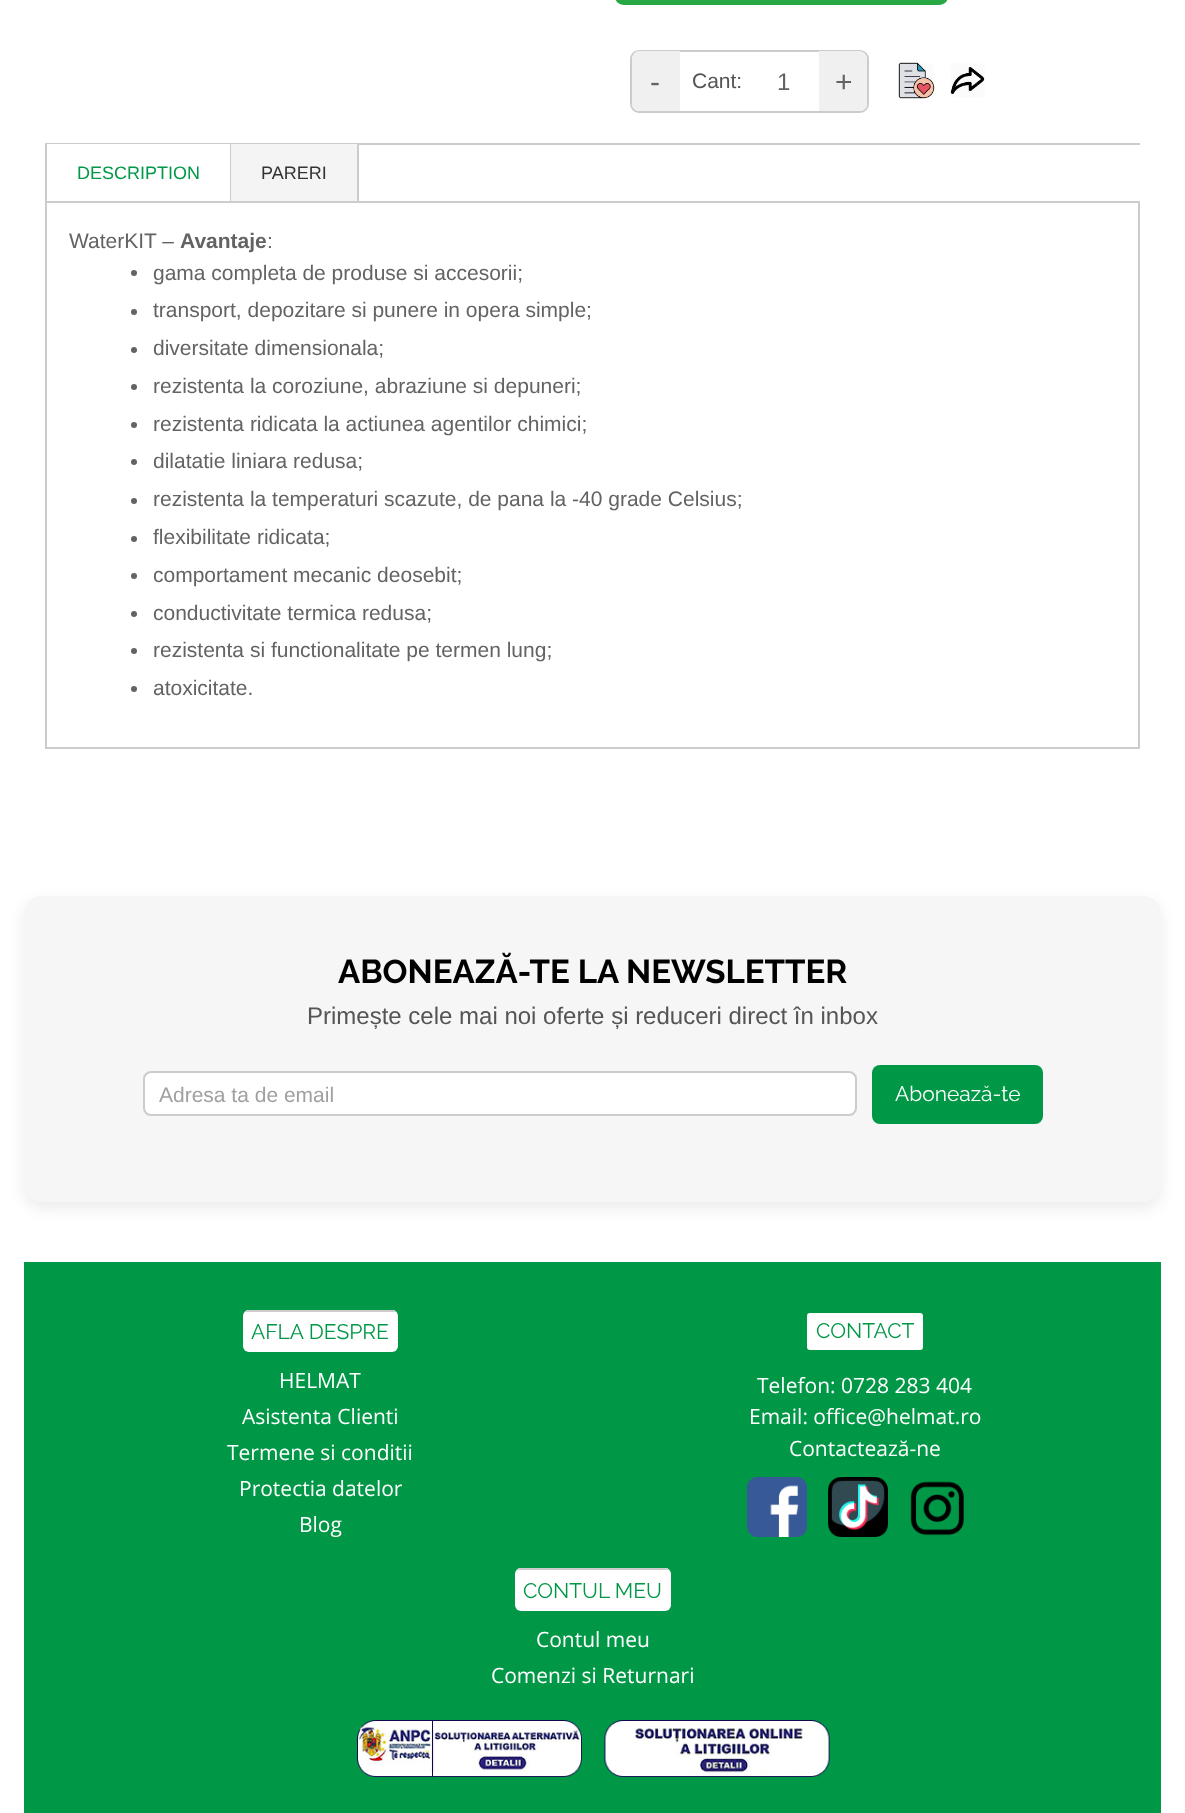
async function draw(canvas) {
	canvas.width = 1185;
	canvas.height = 1813;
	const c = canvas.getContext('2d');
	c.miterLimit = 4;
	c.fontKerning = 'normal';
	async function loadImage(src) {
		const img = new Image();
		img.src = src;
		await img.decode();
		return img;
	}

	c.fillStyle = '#fff';
	c.fillRect(0, 0, 1185, 1813);
	c.fillStyle = '#28a745';
	c.beginPath();
	c.roundRect(615, -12, 333, 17, 12);
	c.fill();
	c.beginPath();
	c.roundRect(631, 51, 237, 61, 8);
	c.strokeStyle = '#ccc';
	c.lineWidth = 2;
	c.stroke();
	c.fillStyle = '#f0f0f0';
	c.beginPath();
	c.roundRect(632, 51, 48, 60, [8, 0, 0, 8]);
	c.fill();
	c.font = '30px Liberation Sans';
	c.fillStyle = '#636363';
	c.fillText('-', 650, 92);
	c.font = '21px Liberation Sans';
	c.fillStyle = '#555';
	c.fillText('Cant:', 692, 88);
	c.font = '24px Liberation Sans';
	c.fillStyle = '#636363';
	c.fillText('1', 777, 90);
	c.fillStyle = '#f0f0f0';
	c.beginPath();
	c.roundRect(819, 51, 48, 60, [0, 8, 8, 0]);
	c.fill();
	c.font = '30px Liberation Sans';
	c.fillStyle = '#636363';
	c.fillText('+', 835, 92);
	c.drawImage(await loadImage('img1.png'), 898, 62, 37, 37);
	c.drawImage(await loadImage('img2.png'), 950, 63, 35, 35);
	for (const [x, y, w, h, color] of [
		[45, 143, 1095, 2, '#ccc'],
		[230, 143, 2, 58, '#ccc'],
		[45, 143, 2, 58, '#ccc'],
		[47, 144, 183, 1, '#fff'],
	]) {
		c.fillStyle = color;
		c.fillRect(x, y, w, h);
	}
	c.font = '18px Liberation Sans';
	c.fillStyle = '#009846';
	c.fillText('DESCRIPTION', 77, 179);
	c.fillStyle = '#ccc';
	c.fillRect(357, 143, 2, 58);
	c.fillStyle = '#f4f4f4';
	c.fillRect(231, 144, 126, 57);
	c.fillStyle = '#333';
	c.fillText('PARERI', 261, 179);
	c.strokeRect(46, 202, 1093, 546);
	c.font = '21px Liberation Sans';
	c.fillStyle = '#636363';
	c.fillText('WaterKIT –', 69, 248);
	c.font = 'bold 21px Liberation Sans';
	c.fillText('Avantaje', 180, 248);
	c.font = '21px Liberation Sans';
	c.fillText(':', 267, 248);
	c.beginPath();
	c.arc(134, 273, 3, 0, 2 * Math.PI);
	c.fill();
	c.fillText('gama completa de produse si accesorii;', 153, 280);
	c.beginPath();
	c.arc(134, 312, 3, 0, 2 * Math.PI);
	c.fill();
	c.fillText('transport, depozitare si punere in opera simple;', 153, 317);
	c.beginPath();
	c.arc(134, 350, 3, 0, 2 * Math.PI);
	c.fill();
	c.fillText('diversitate dimensionala;', 153, 355);
	c.beginPath();
	c.arc(134, 387, 3, 0, 2 * Math.PI);
	c.fill();
	c.fillText('rezistenta la coroziune, abraziune si depuneri;', 153, 393);
	c.beginPath();
	c.arc(134, 425, 3, 0, 2 * Math.PI);
	c.fill();
	c.fillText('rezistenta ridicata la actiunea agentilor chimici;', 153, 431);
	c.beginPath();
	c.arc(134, 462, 3, 0, 2 * Math.PI);
	c.fill();
	c.fillText('dilatatie liniara redusa;', 153, 468);
	c.beginPath();
	c.arc(134, 501, 3, 0, 2 * Math.PI);
	c.fill();
	c.fillText('rezistenta la temperaturi scazute, de pana la -40 grade Celsius;', 153, 506);
	c.beginPath();
	c.arc(134, 539, 3, 0, 2 * Math.PI);
	c.fill();
	c.fillText('flexibilitate ridicata;', 153, 544);
	c.beginPath();
	c.arc(134, 576, 3, 0, 2 * Math.PI);
	c.fill();
	c.fillText('comportament mecanic deosebit;', 153, 582);
	c.beginPath();
	c.arc(134, 614, 3, 0, 2 * Math.PI);
	c.fill();
	c.fillText('conductivitate termica redusa;', 153, 620);
	c.beginPath();
	c.arc(134, 651, 3, 0, 2 * Math.PI);
	c.fill();
	c.fillText('rezistenta si functionalitate pe termen lung;', 153, 657);
	c.beginPath();
	c.arc(134, 689, 3, 0, 2 * Math.PI);
	c.fill();
	c.fillText('atoxicitate.', 153, 695);
	c.fillStyle = '#00000014';
	c.filter = 'blur(7.5px)';
	c.beginPath();
	c.roundRect(24, 902, 1137, 306, 18);
	c.fill();
	c.filter = 'none';
	c.fillStyle = '#f6f6f6';
	c.beginPath();
	c.roundRect(24, 896, 1137, 306, 18);
	c.fill();
	c.font = 'bold 33px Raleway';
	c.fillStyle = '#000';
	c.fillText('ABONEAZĂ-TE LA NEWSLETTER', 338, 983);
	c.font = '24px Liberation Sans';
	c.fillStyle = '#555';
	c.fillText('Primește cele mai noi oferte și reduceri direct în inbox', 307, 1024);
	c.fillStyle = '#fff';
	c.beginPath();
	c.roundRect(144, 1072, 712, 43, 7);
	c.fill();
	c.stroke();
	c.font = '21px Liberation Sans';
	c.fillStyle = '#a0a0a0';
	c.fillText('Adresa ta de email', 159, 1102);
	c.fillStyle = '#009846';
	c.beginPath();
	c.roundRect(872, 1065, 171, 59, 8);
	c.fill();
	c.font = '21px Raleway';
	c.fillStyle = '#fff';
	c.fillText('Abonează-te', 895, 1101);
	c.fillStyle = '#009846';
	c.fillRect(24, 1262, 1137, 551);
	c.fillStyle = '#fff';
	c.beginPath();
	c.roundRect(243, 1310, 155, 42, 6);
	c.fill();
	c.fillStyle = '#ccc';
	c.fillRect(246, 1310, 149, 2);
	c.fillStyle = '#009846';
	c.fillText('AFLA DESPRE', 251, 1339);
	c.font = '21px Open Sans';
	c.fillStyle = '#fff';
	for (const [text, x, y] of [
		['HELMAT', 279, 1388],
		['Asistenta Clienti', 242, 1424],
		['Termene si conditii', 227, 1460],
		['Protectia datelor', 239, 1496],
		['Blog', 299, 1532],
	]) {
		c.fillText(text, x, y);
	}
	c.beginPath();
	c.roundRect(805.5, 1311.5, 119, 40, 4.5);
	c.fill();
	c.strokeStyle = '#009846';
	c.lineWidth = 3;
	c.stroke();
	c.font = '21px Raleway';
	c.fillStyle = '#009846';
	c.fillText('CONTACT', 816, 1338);
	c.font = '21px Open Sans';
	c.fillStyle = '#fff';
	for (const [text, x, y] of [
		['Telefon: 0728 283 404', 757, 1393],
		['Email: office@helmat.ro', 749, 1424],
		['Contactează-ne', 789, 1456],
	]) {
		c.fillText(text, x, y);
	}
	c.drawImage(await loadImage('img3.png'), 747, 1477, 60, 60);
	c.drawImage(await loadImage('img4.png'), 828, 1477, 60, 60);
	c.drawImage(await loadImage('img5.png'), 910, 1481, 54, 55);
	c.beginPath();
	c.roundRect(515, 1568, 156, 43, 6);
	c.fill();
	c.fillStyle = '#ccc';
	c.fillRect(518, 1568, 150, 2);
	c.font = '21px Raleway';
	c.fillStyle = '#009846';
	c.fillText('CONTUL MEU', 523, 1598);
	c.font = '21px Open Sans';
	c.fillStyle = '#fff';
	c.fillText('Contul meu', 536, 1647);
	c.fillText('Comenzi si Returnari', 491, 1683);
	c.drawImage(await loadImage('img6.png'), 357, 1720, 225, 57);
	c.drawImage(await loadImage('img7.png'), 604, 1720, 226, 57);
}

draw(document.querySelector('canvas'));
